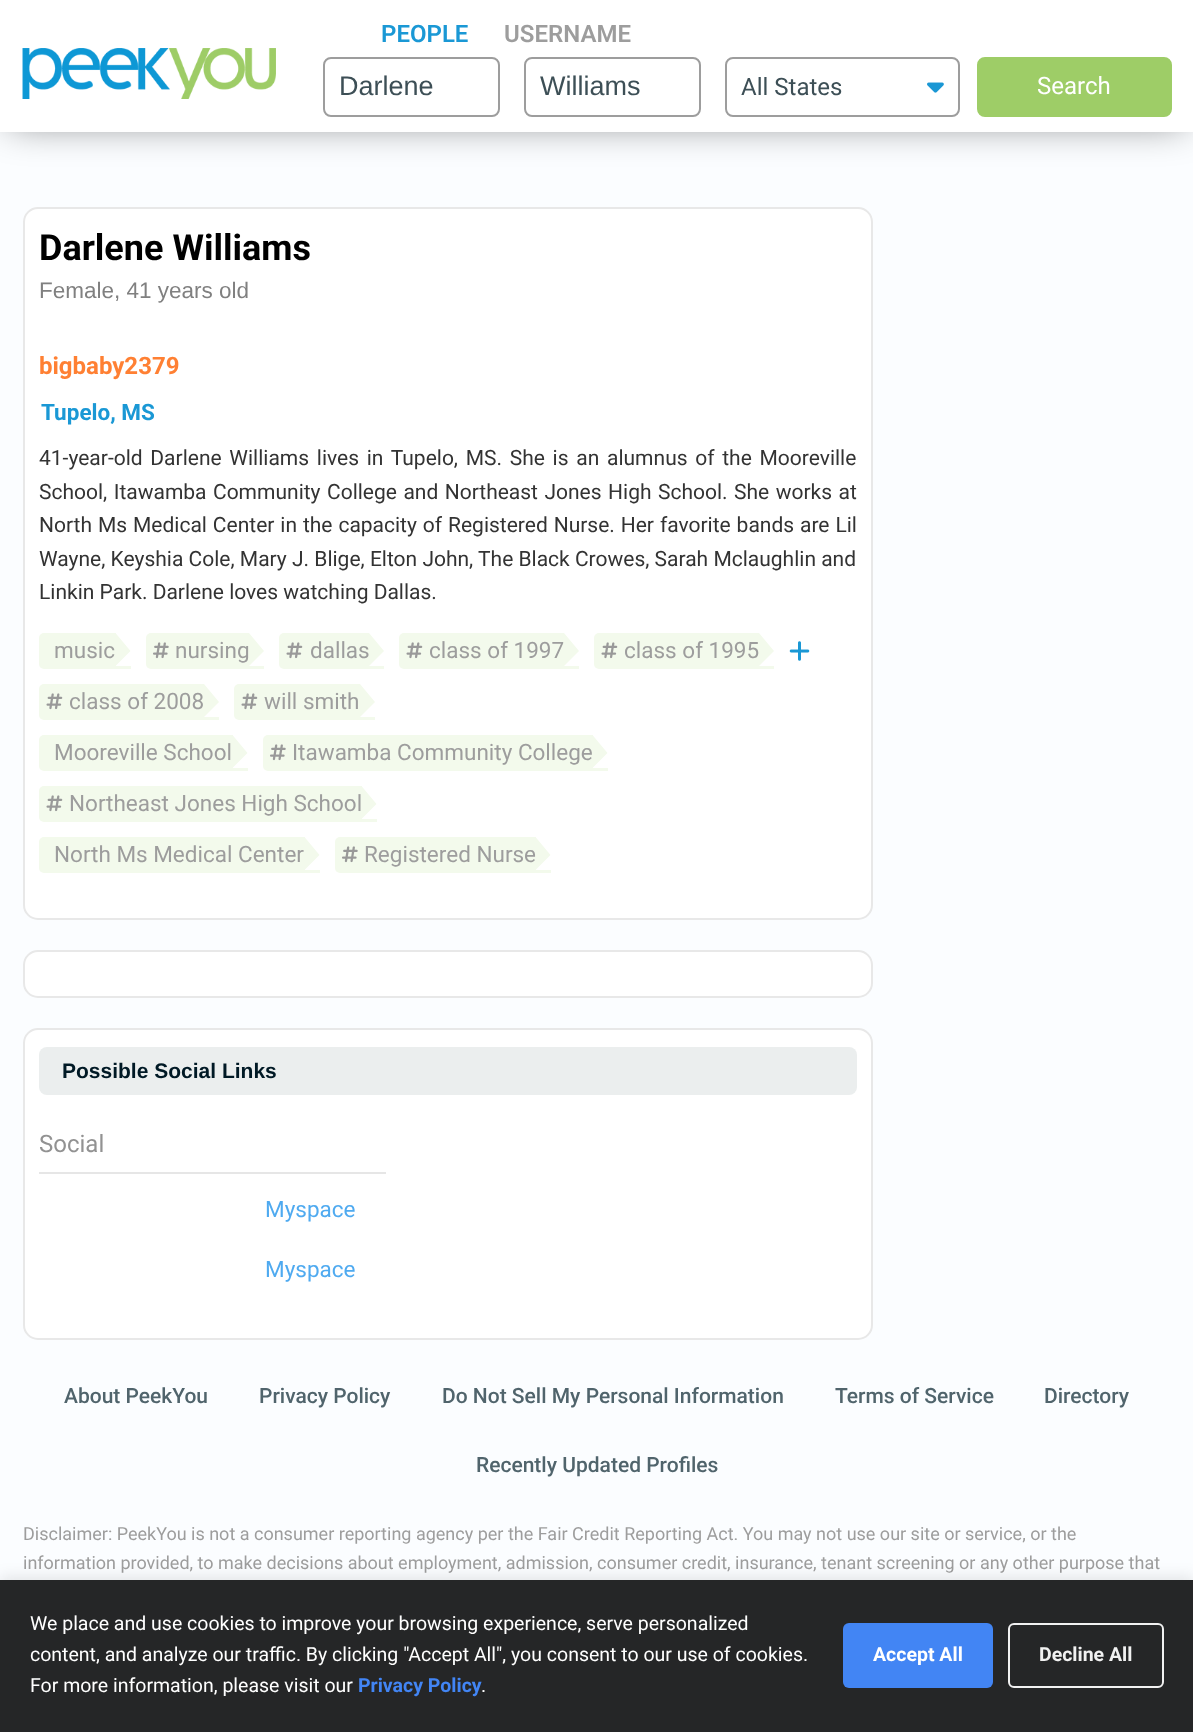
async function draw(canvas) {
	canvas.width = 1193;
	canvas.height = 1732;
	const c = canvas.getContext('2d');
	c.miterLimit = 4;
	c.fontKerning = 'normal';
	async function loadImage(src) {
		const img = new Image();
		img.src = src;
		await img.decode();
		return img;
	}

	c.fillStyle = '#fbfdff';
	c.fillRect(0, 0, 1193, 1732);
	c.fillStyle = '#00000080';
	c.filter = 'blur(19px)';
	c.beginPath();
	c.rect(9, 9, 1176, 114);
	c.fill();
	c.filter = 'none';
	c.fillStyle = '#fff';
	c.fillRect(0, 0, 1193, 132);
	c.drawImage(await loadImage('img1.png'), 22, 48, 254, 51);
	c.font = '600 24px Roboto';
	c.fillStyle = '#1a98d5';
	c.fillText('PEOPLE', 381, 42);
	c.fillStyle = '#9d9d9d';
	c.fillText('USERNAME', 504, 42);
	c.beginPath();
	c.roundRect(324, 58, 175, 58, 7);
	c.strokeStyle = '#9d9d9d';
	c.lineWidth = 2;
	c.stroke();
	c.font = '27px Liberation Sans';
	c.fillStyle = '#3d4f56';
	c.fillText('Darlene', 339, 95);
	c.beginPath();
	c.roundRect(525, 58, 175, 58, 7);
	c.stroke();
	c.fillText('Williams', 540, 95);
	c.beginPath();
	c.roundRect(726, 58, 233, 58, 7);
	c.stroke();
	c.font = '24px Roboto';
	c.fillText('All States', 741, 95);
	c.drawImage(await loadImage('img2.png'), 927, 82, 17, 11);
	c.fillStyle = '#9ecd67';
	c.beginPath();
	c.roundRect(978, 58, 193, 58, 7);
	c.fill();
	c.strokeStyle = '#9ecd67';
	c.stroke();
	c.fillStyle = '#fff';
	c.fillText('Search', 1037, 94);
	c.beginPath();
	c.roundRect(24, 208, 848, 711, 14);
	c.fill();
	c.strokeStyle = '#e8e8e8';
	c.stroke();
	c.font = 'bold 36px Roboto';
	c.fillStyle = '#000';
	c.fillText('Darlene Williams', 39, 260);
	c.font = '22.5px Liberation Sans';
	c.fillStyle = '#808080';
	c.fillText('Female, 41 years old', 39, 298);
	c.font = 'bold 24px Roboto';
	c.fillStyle = '#ff8033';
	c.fillText('bigbaby2379', 39, 374);
	c.font = 'bold 22.5px Roboto';
	c.fillStyle = '#1a98d5';
	c.fillText('Tupelo, MS', 41, 420);
	c.wordSpacing = '2.5px';
	c.font = '21px Roboto';
	c.fillStyle = '#333';
	c.fillText('41-year-old Darlene Williams lives in Tupelo, MS. She is an alumnus of the Mooreville', 39, 465);
	c.wordSpacing = '1.25px';
	c.fillText('School, Itawamba Community College and Northeast Jones High School. She works at', 39, 499);
	c.wordSpacing = '0.7px';
	c.fillText('North Ms Medical Center in the capacity of Registered Nurse. Her favorite bands are Lil', 39, 532);
	c.wordSpacing = '0px';
	c.fillText('Wayne, Keyshia Cole, Mary J. Blige, Elton John, The Black Crowes, Sarah Mclaughlin and', 39, 566);
	c.fillText('Linkin Park. Darlene loves watching Dallas.', 39, 599);
	c.fillStyle = '#f3faec';
	c.beginPath();
	c.roundRect(39, 633, 92, 36, [5, 0, 0, 5]);
	c.fill();
	c.font = '22.5px Roboto';
	c.fillStyle = '#9d9d9d';
	c.fillText('music', 54, 658);
	c.fillStyle = '#fff';
	c.fillRect(116, 633, 15, 33);
	c.fillStyle = '#f3faec';
	c.beginPath();
	c.moveTo(115.5, 666);
	c.lineTo(115.5, 633);
	c.lineTo(130.5, 651);
	c.closePath();
	c.fill();
	c.beginPath();
	c.roundRect(146, 633, 118, 36, [5, 0, 0, 5]);
	c.fill();
	c.drawImage(await loadImage('img3.png'), 153, 642, 16, 17);
	c.fillStyle = '#9d9d9d';
	c.fillText('nursing', 175, 658);
	c.fillStyle = '#fff';
	c.fillRect(249, 633, 15, 33);
	c.fillStyle = '#f3faec';
	c.beginPath();
	c.moveTo(249, 666);
	c.lineTo(249, 633);
	c.lineTo(264, 651);
	c.closePath();
	c.fill();
	c.beginPath();
	c.roundRect(279, 633, 105, 36, [5, 0, 0, 5]);
	c.fill();
	c.drawImage(await loadImage('img4.png'), 286, 642, 17, 17);
	c.fillStyle = '#9d9d9d';
	c.fillText('dallas', 310, 658);
	c.fillStyle = '#fff';
	c.fillRect(369, 633, 15, 33);
	c.fillStyle = '#f3faec';
	c.beginPath();
	c.moveTo(369, 666);
	c.lineTo(369, 633);
	c.lineTo(384, 651);
	c.closePath();
	c.fill();
	c.beginPath();
	c.roundRect(399, 633, 180, 36, [5, 0, 0, 5]);
	c.fill();
	c.drawImage(await loadImage('img4.png'), 406, 642, 17, 17);
	c.fillStyle = '#9d9d9d';
	c.fillText('class of 1997', 429, 658);
	c.fillStyle = '#fff';
	c.fillRect(564, 633, 15, 33);
	c.fillStyle = '#f3faec';
	c.beginPath();
	c.moveTo(564, 666);
	c.lineTo(564, 633);
	c.lineTo(579, 651);
	c.closePath();
	c.fill();
	c.beginPath();
	c.roundRect(594, 633, 180, 36, [5, 0, 0, 5]);
	c.fill();
	c.drawImage(await loadImage('img4.png'), 601, 642, 17, 17);
	c.fillStyle = '#9d9d9d';
	c.fillText('class of 1995', 624, 658);
	c.fillStyle = '#fff';
	c.fillRect(759, 633, 15, 33);
	c.fillStyle = '#f3faec';
	c.beginPath();
	c.moveTo(759, 666);
	c.lineTo(759, 633);
	c.lineTo(774, 651);
	c.closePath();
	c.fill();
	c.drawImage(await loadImage('img5.png'), 789, 641, 21, 20);
	c.beginPath();
	c.roundRect(39, 684, 180, 36, [5, 0, 0, 5]);
	c.fill();
	c.drawImage(await loadImage('img4.png'), 46, 693, 17, 17);
	c.fillStyle = '#9d9d9d';
	c.fillText('class of 2008', 69, 709);
	c.fillStyle = '#fff';
	c.fillRect(204, 684, 15, 33);
	c.fillStyle = '#f3faec';
	c.beginPath();
	c.moveTo(204, 717);
	c.lineTo(204, 684);
	c.lineTo(219, 702);
	c.closePath();
	c.fill();
	c.beginPath();
	c.roundRect(234, 684, 141, 36, [5, 0, 0, 5]);
	c.fill();
	c.drawImage(await loadImage('img4.png'), 241, 693, 17, 17);
	c.fillStyle = '#9d9d9d';
	c.fillText('will smith', 264, 709);
	c.fillStyle = '#fff';
	c.fillRect(360, 684, 15, 33);
	c.fillStyle = '#f3faec';
	c.beginPath();
	c.moveTo(360, 717);
	c.lineTo(360, 684);
	c.lineTo(375, 702);
	c.closePath();
	c.fill();
	c.beginPath();
	c.roundRect(39, 735, 209, 36, [5, 0, 0, 5]);
	c.fill();
	c.fillStyle = '#9d9d9d';
	c.fillText('Mooreville School', 54, 760);
	c.fillStyle = '#fff';
	c.fillRect(233, 735, 15, 33);
	c.fillStyle = '#f3faec';
	c.beginPath();
	c.moveTo(232.5, 768);
	c.lineTo(232.5, 735);
	c.lineTo(247.5, 753);
	c.closePath();
	c.fill();
	c.beginPath();
	c.roundRect(263, 735, 345, 36, [5, 0, 0, 5]);
	c.fill();
	c.drawImage(await loadImage('img3.png'), 270, 744, 16, 17);
	c.fillStyle = '#9d9d9d';
	c.fillText('Itawamba Community College', 292, 760);
	c.fillStyle = '#fff';
	c.fillRect(593, 735, 15, 33);
	c.fillStyle = '#f3faec';
	c.beginPath();
	c.moveTo(592.5, 768);
	c.lineTo(592.5, 735);
	c.lineTo(607.5, 753);
	c.closePath();
	c.fill();
	c.beginPath();
	c.roundRect(39, 786, 338, 36, [5, 0, 0, 5]);
	c.fill();
	c.drawImage(await loadImage('img4.png'), 46, 795, 17, 17);
	c.fillStyle = '#9d9d9d';
	c.fillText('Northeast Jones High School', 69, 811);
	c.fillStyle = '#fff';
	c.fillRect(362, 786, 15, 33);
	c.fillStyle = '#f3faec';
	c.beginPath();
	c.moveTo(361.5, 819);
	c.lineTo(361.5, 786);
	c.lineTo(376.5, 804);
	c.closePath();
	c.fill();
	c.beginPath();
	c.roundRect(39, 837, 281, 36, [5, 0, 0, 5]);
	c.fill();
	c.fillStyle = '#9d9d9d';
	c.fillText('North Ms Medical Center', 54, 862);
	c.fillStyle = '#fff';
	c.fillRect(305, 837, 15, 33);
	c.fillStyle = '#f3faec';
	c.beginPath();
	c.moveTo(304.5, 870);
	c.lineTo(304.5, 837);
	c.lineTo(319.5, 855);
	c.closePath();
	c.fill();
	c.beginPath();
	c.roundRect(335, 837, 216, 36, [5, 0, 0, 5]);
	c.fill();
	c.drawImage(await loadImage('img3.png'), 342, 846, 16, 17);
	c.fillStyle = '#9d9d9d';
	c.fillText('Registered Nurse', 364, 862);
	c.fillStyle = '#fff';
	c.fillRect(536, 837, 15, 33);
	c.fillStyle = '#f3faec';
	c.beginPath();
	c.moveTo(535.5, 870);
	c.lineTo(535.5, 837);
	c.lineTo(550.5, 855);
	c.closePath();
	c.fill();
	c.fillStyle = '#fff';
	c.beginPath();
	c.roundRect(24, 951, 848, 46, 14);
	c.fill();
	c.stroke();
	c.beginPath();
	c.roundRect(24, 1029, 848, 310, 14);
	c.fill();
	c.stroke();
	c.fillStyle = '#ebeeee';
	c.beginPath();
	c.roundRect(39, 1047, 818, 48, 8);
	c.fill();
	c.font = 'bold 21px Liberation Sans';
	c.fillStyle = '#001925';
	c.fillText('Possible Social Links', 62, 1078);
	c.fillStyle = '#e6e6e6';
	c.fillRect(39, 1172, 347, 2);
	c.font = '24px Roboto';
	c.fillStyle = '#929292';
	c.fillText('Social', 39, 1152);
	c.font = '22.5px Roboto';
	c.fillStyle = '#4faaf0';
	c.fillText('Myspace', 265, 1217);
	c.fillText('Myspace', 265, 1277);
	c.font = '500 21px Roboto';
	c.fillStyle = '#50646c';
	for (const [text, x, y] of [
		['About PeekYou', 64, 1403],
		['Privacy Policy', 259, 1403],
		['Do Not Sell My Personal Information', 442, 1403],
		['Terms of Service', 835, 1403],
		['Directory', 1044, 1403],
		['Recently Updated Profiles', 476, 1472],
	]) {
		c.fillText(text, x, y);
	}
	c.font = '18px Roboto';
	c.fillStyle = '#9d9d9d';
	c.fillText('Disclaimer: PeekYou is not a consumer reporting agency per the Fair Credit Reporting Act. You may not use our site or service, or the', 23, 1540);
	c.fillText('information provided, to make decisions about employment, admission, consumer credit, insurance, tenant screening or any other purpose that', 23, 1569);
	c.fillStyle = '#0000001a';
	c.filter = 'blur(7.5px)';
	c.beginPath();
	c.rect(0, 1577, 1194, 153);
	c.fill();
	c.filter = 'none';
	c.fillStyle = '#252627';
	c.fillRect(0, 1580, 1193, 152);
	c.font = '19.5px Roboto';
	c.fillStyle = '#fff';
	for (const [text, x, y] of [
		['We place and use cookies to improve your browsing experience, serve personalized', 30, 1630],
		['content, and analyze our traffic. By clicking "Accept All", you consent to our use of cookies.', 30, 1661],
		['For more information, please visit our', 30, 1692],
	]) {
		c.fillText(text, x, y);
	}
	c.font = 'bold 19.5px Roboto';
	c.fillStyle = '#4285f4';
	c.fillText('Privacy Policy', 358, 1692);
	c.font = '19.5px Roboto';
	c.fillStyle = '#fff';
	c.fillText('.', 481, 1692);
	c.fillStyle = '#4285f4';
	c.beginPath();
	c.roundRect(843, 1623, 150, 65, 6);
	c.fill();
	c.font = 'bold 19.5px Roboto';
	c.fillStyle = '#fff';
	c.fillText('Accept All', 873, 1661);
	c.beginPath();
	c.roundRect(1009, 1624, 154, 63, 5);
	c.strokeStyle = '#f1f1f1';
	c.stroke();
	c.fillStyle = '#f1f1f1';
	c.fillText('Decline All', 1039, 1661);
}

draw(document.querySelector('canvas'));
